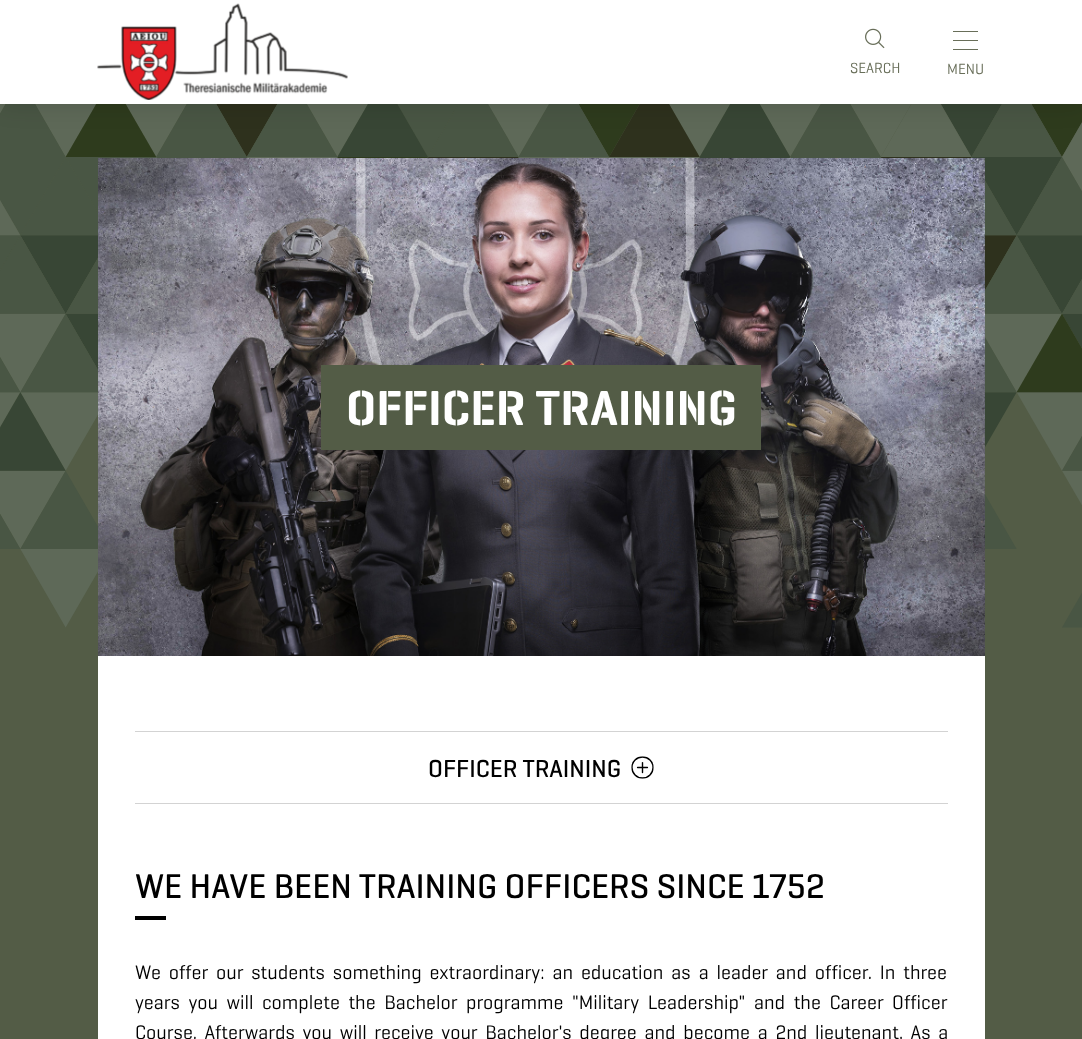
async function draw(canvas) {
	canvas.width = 1082;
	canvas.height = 1039;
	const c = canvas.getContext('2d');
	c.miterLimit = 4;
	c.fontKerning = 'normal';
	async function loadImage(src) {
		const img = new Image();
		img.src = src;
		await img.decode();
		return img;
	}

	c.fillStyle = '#535c46';
	c.fillRect(0, 0, 1082, 1039);
	c.drawImage(await loadImage('img1.png'), 0, 104, 1082, 524);
	c.fillStyle = '#00000026';
	c.filter = 'blur(12.5px)';
	c.beginPath();
	c.rect(0, 0, 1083, 104);
	c.fill();
	c.filter = 'none';
	c.fillStyle = '#fff';
	c.fillRect(0, 0, 1082, 104);
	c.drawImage(await loadImage('img2.png'), 97, 3, 251, 97);
	c.drawImage(await loadImage('img3.png'), 865, 28, 20, 21);
	c.font = '15px "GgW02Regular"';
	c.fillStyle = '#686e59';
	c.fillText('SEARCH', 850, 73);
	for (const [x, y, w, h, color] of [
		[953, 31, 25, 1, '#686e59'],
		[953, 40, 25, 1, '#686e59'],
		[953, 49, 25, 1, '#686e59'],
	]) {
		c.fillStyle = color;
		c.fillRect(x, y, w, h);
	}
	c.fillText('MENU', 947, 74);
	c.drawImage(await loadImage('img4.png'), 98, 158, 887, 498);
	c.fillStyle = '#535c46';
	c.fillRect(321, 365, 440, 85);
	c.font = 'bold 50px "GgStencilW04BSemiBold"';
	c.fillStyle = '#fff';
	c.fillText('OFFICER TRAINING', 346, 425);
	for (const [x, y, w, h, color] of [
		[98, 656, 887, 383, '#fff'],
		[135, 731, 813, 1, '#d3d3d3'],
		[135, 803, 813, 1, '#d3d3d3'],
	]) {
		c.fillStyle = color;
		c.fillRect(x, y, w, h);
	}
	c.font = '500 25px "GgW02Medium"';
	c.fillStyle = '#000';
	c.fillText('OFFICER TRAINING', 428, 777);
	c.drawImage(await loadImage('img5.png'), 631, 756, 23, 23);
	c.font = '500 35px "GgW02Medium"';
	c.fillText('WE HAVE BEEN TRAINING OFFICERS SINCE 1752', 135, 898);
	c.fillRect(135, 916, 31, 4);
	c.wordSpacing = '3.4px';
	c.font = '20px "GgW02Regular"';
	c.fillText('We offer our students something extraordinary: an education as a leader and officer. In three', 135, 979);
	c.wordSpacing = '4.1px';
	c.fillText('years you will complete the Bachelor programme "Military Leadership" and the Career Officer', 135, 1009);
	c.wordSpacing = '3.25px';
	c.fillText('Course. Afterwards you will receive your Bachelor\'s degree and become a 2nd lieutenant. As a', 135, 1039);
}

draw(document.querySelector('canvas'));
